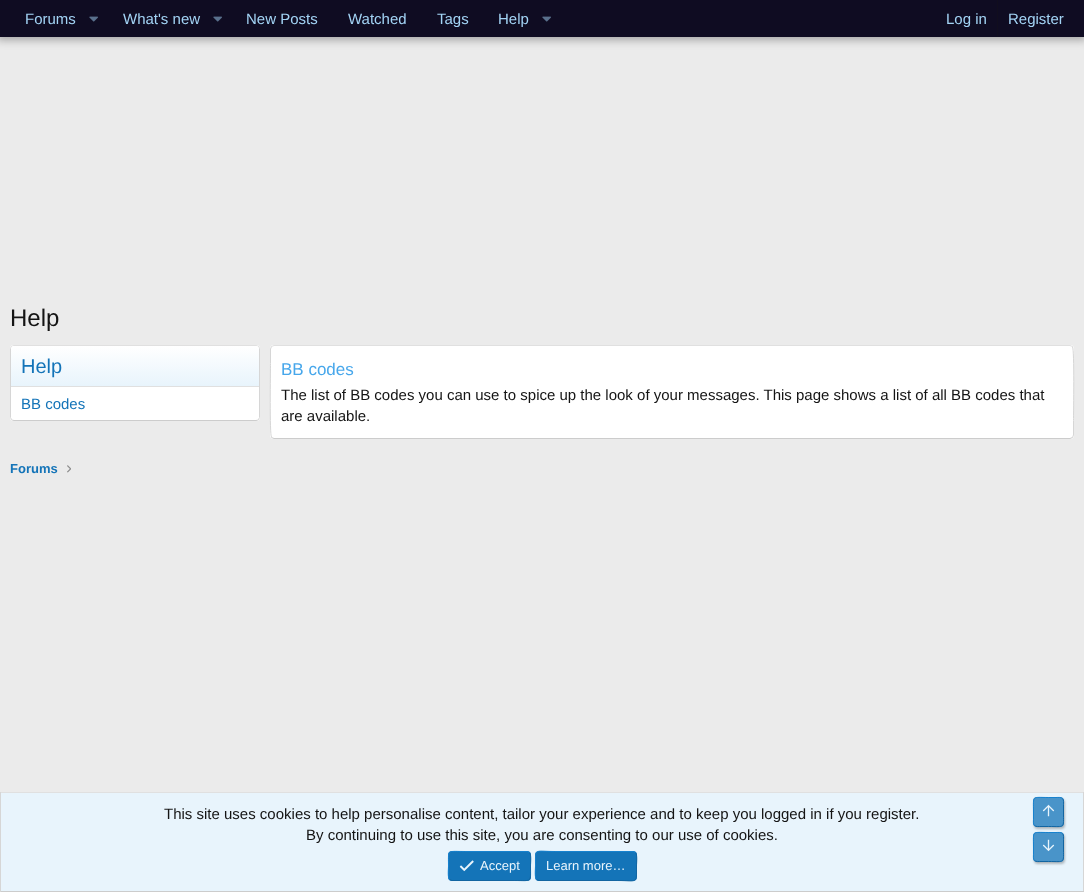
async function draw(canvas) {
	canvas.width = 1084;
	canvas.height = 892;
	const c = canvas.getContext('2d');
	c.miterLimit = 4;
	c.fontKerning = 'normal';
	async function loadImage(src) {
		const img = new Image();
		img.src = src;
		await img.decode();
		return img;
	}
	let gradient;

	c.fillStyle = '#ebebeb';
	c.fillRect(0, 0, 1084, 892);
	c.fillStyle = '#0000004d';
	c.filter = 'blur(4px)';
	c.beginPath();
	c.rect(-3, -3, 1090, 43);
	c.fill();
	c.filter = 'none';
	c.fillStyle = '#0f0c22';
	c.fillRect(0, 0, 1084, 37);
	c.font = '15px Liberation Sans';
	c.fillStyle = '#a3d4f5';
	c.fillText('Forums', 25, 24);
	c.drawImage(await loadImage('img1.png'), 89, 16, 9, 6);
	c.fillText('What\'s new', 123, 24);
	c.drawImage(await loadImage('img1.png'), 213, 16, 9, 6);
	for (const [text, x, y] of [
		['New Posts', 246, 24],
		['Watched', 348, 24],
		['Tags', 437, 24],
		['Help', 498, 24],
	]) {
		c.fillText(text, x, y);
	}
	c.drawImage(await loadImage('img1.png'), 542, 16, 9, 6);
	c.fillText('Log in', 946, 24);
	c.fillStyle = '#110e1e';
	c.fillRect(997, 0, 1, 37);
	c.fillStyle = '#a3d4f5';
	c.fillText('Register', 1008, 24);
	c.font = '24px Liberation Sans';
	c.fillStyle = '#141414';
	c.fillText('Help', 10, 326);
	c.fillStyle = '#fff';
	c.beginPath();
	c.roundRect(10, 345, 250, 76, 4);
	c.fill();
	c.beginPath();
	c.moveTo(11.5, 346.5);
	c.bezierCurveTo(12, 346, 13, 345.5, 14, 345.5);
	c.lineTo(256, 345.5);
	c.bezierCurveTo(257, 345.5, 258, 346, 258.5, 346.5);
	c.strokeStyle = '#e0e0e0';
	c.stroke();
	c.beginPath();
	c.moveTo(258.5, 346.5);
	c.lineTo(259.5, 348.5);
	c.lineTo(259.5, 417.5);
	c.lineTo(258.5, 419.5);
	c.strokeStyle = '#d6d6d6';
	c.stroke();
	c.beginPath();
	c.moveTo(258.5, 419.5);
	c.bezierCurveTo(258, 420, 257, 420.5, 256, 420.5);
	c.lineTo(14, 420.5);
	c.bezierCurveTo(13, 420.5, 12, 420, 11.5, 419.5);
	c.strokeStyle = '#ccc';
	c.stroke();
	c.beginPath();
	c.moveTo(11.5, 419.5);
	c.lineTo(10.5, 417.5);
	c.lineTo(10.5, 348.5);
	c.lineTo(11.5, 346.5);
	c.strokeStyle = '#d6d6d6';
	c.stroke();
	gradient = c.createLinearGradient(135, 386, 135, 346);
	gradient.addColorStop(0, '#e8f4fc');
	gradient.addColorStop(1, '#fff');
	c.fillStyle = gradient;
	c.beginPath();
	c.roundRect(11, 346, 248, 40, [3, 3, 0, 0]);
	c.fill();
	c.fillStyle = '#e0e0e0';
	c.fillRect(11, 386, 248, 1);
	c.font = '20px Liberation Sans';
	c.fillStyle = '#1474b8';
	c.fillText('Help', 21, 373);
	c.font = '15px Liberation Sans';
	c.fillText('BB codes', 21, 409);
	c.fillStyle = '#fff';
	c.beginPath();
	c.roundRect(270, 345, 804, 94, 4);
	c.fill();
	c.beginPath();
	c.moveTo(271.5, 346.5);
	c.lineTo(274, 345.5);
	c.lineTo(1070, 345.5);
	c.lineTo(1072.5, 346.5);
	c.strokeStyle = '#e0e0e0';
	c.stroke();
	c.beginPath();
	c.moveTo(1072.5, 346.5);
	c.lineTo(1072.5, 347);
	c.bezierCurveTo(1074.5, 349, 1073.5, 412.5, 1073.5, 420.5);
	c.lineTo(1073.5, 435);
	c.lineTo(1072.5, 437.5);
	c.strokeStyle = '#d6d6d6';
	c.stroke();
	c.beginPath();
	c.moveTo(1072.5, 437.5);
	c.lineTo(1070, 438.5);
	c.lineTo(274, 438.5);
	c.lineTo(271.5, 437.5);
	c.strokeStyle = '#ccc';
	c.stroke();
	c.beginPath();
	c.moveTo(271.5, 437.5);
	c.lineTo(271.5, 437);
	c.bezierCurveTo(269.5, 435, 270.5, 371.5, 270.5, 363.5);
	c.lineTo(270.5, 349);
	c.lineTo(271.5, 346.5);
	c.strokeStyle = '#d6d6d6';
	c.stroke();
	c.font = '17px Liberation Sans';
	c.fillStyle = '#47a7eb';
	c.fillText('BB codes', 281, 375);
	c.font = '15px Liberation Sans';
	c.fillStyle = '#141414';
	c.fillText('The list of BB codes you can use to spice up the look of your messages. This page shows a list of all BB codes that', 281, 400);
	c.fillText('are available.', 281, 421);
	c.font = 'bold 13px Liberation Sans';
	c.fillStyle = '#1474b8';
	c.fillText('Forums', 10, 473);
	c.drawImage(await loadImage('img2.png'), 67, 465, 4, 8);
	for (const [x, y, w, h, color] of [
		[1, 793, 1082, 98, '#e8f4fc'],
		[0, 792, 1084, 1, '#e0e0e0'],
		[1083, 792, 1, 100, '#d6d6d6'],
		[0, 891, 1084, 1, '#ccc'],
		[0, 792, 1, 100, '#d6d6d6'],
	]) {
		c.fillStyle = color;
		c.fillRect(x, y, w, h);
	}
	c.font = '15px Liberation Sans';
	c.fillStyle = '#141414';
	c.fillText('This site uses cookies to help personalise content, tailor your experience and to keep you logged in if you register.', 164, 819);
	c.fillText('By continuing to use this site, you are consenting to our use of cookies.', 306, 840);
	c.fillStyle = '#1474b8';
	c.beginPath();
	c.roundRect(448, 851, 83, 30, 4);
	c.fill();
	c.beginPath();
	c.moveTo(529.5, 852.5);
	c.bezierCurveTo(531.5, 854.5, 530.5, 863, 530.5, 866);
	c.bezierCurveTo(530.5, 883, 532.5, 880.5, 514.5, 880.5);
	c.lineTo(452, 880.5);
	c.lineTo(449.5, 879.5);
	c.strokeStyle = '#1265a1';
	c.stroke();
	c.beginPath();
	c.moveTo(449.5, 879.5);
	c.bezierCurveTo(447.5, 877.5, 448.5, 869, 448.5, 866);
	c.bezierCurveTo(448.5, 849, 446.5, 851.5, 464.5, 851.5);
	c.lineTo(527, 851.5);
	c.lineTo(529.5, 852.5);
	c.strokeStyle = '#1782cf';
	c.stroke();
	c.drawImage(await loadImage('img3.png'), 459, 860, 15, 12);
	c.font = '13px Liberation Sans';
	c.fillStyle = '#e8f4fc';
	c.fillText('Accept', 480, 870);
	c.fillStyle = '#1474b8';
	c.beginPath();
	c.roundRect(535, 851, 102, 30, 4);
	c.fill();
	c.beginPath();
	c.moveTo(635.5, 852.5);
	c.bezierCurveTo(637.5, 854.5, 636.5, 863, 636.5, 866);
	c.bezierCurveTo(636.5, 884.5, 638, 880.5, 617.5, 880.5);
	c.lineTo(539, 880.5);
	c.lineTo(536.5, 879.5);
	c.strokeStyle = '#1265a1';
	c.stroke();
	c.beginPath();
	c.moveTo(536.5, 879.5);
	c.bezierCurveTo(534.5, 877.5, 535.5, 869, 535.5, 866);
	c.bezierCurveTo(535.5, 847.5, 534, 851.5, 554.5, 851.5);
	c.lineTo(633, 851.5);
	c.lineTo(635.5, 852.5);
	c.strokeStyle = '#1782cf';
	c.stroke();
	c.fillStyle = '#e8f4fc';
	c.fillText('Learn more…', 546, 870);
	c.save();
	c.beginPath();
	c.moveTo(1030, 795);
	c.lineTo(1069, 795);
	c.lineTo(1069, 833);
	c.lineTo(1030, 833);
	c.closePath();
	c.moveTo(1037, 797);
	c.lineTo(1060, 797);
	c.bezierCurveTo(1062, 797, 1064, 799, 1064, 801);
	c.lineTo(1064, 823);
	c.bezierCurveTo(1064, 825, 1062, 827, 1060, 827);
	c.lineTo(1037, 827);
	c.bezierCurveTo(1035, 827, 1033, 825, 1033, 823);
	c.lineTo(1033, 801);
	c.bezierCurveTo(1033, 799, 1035, 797, 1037, 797);
	c.closePath();
	c.clip('evenodd');
	c.fillStyle = '#00000040';
	c.filter = 'blur(1px)';
	c.beginPath();
	c.roundRect(1034, 799, 31, 30, 4);
	c.fill();
	c.filter = 'none';
	c.restore();
	c.fillStyle = '#1474b8bf';
	c.beginPath();
	c.roundRect(1033, 797, 31, 30, 4);
	c.fill();
	c.beginPath();
	c.moveTo(1062.5, 798.5);
	c.bezierCurveTo(1064, 800, 1063.5, 803, 1063.5, 804.5);
	c.lineTo(1063.5, 812);
	c.bezierCurveTo(1063.5, 829, 1065.5, 826.5, 1048.5, 826.5);
	c.lineTo(1041, 826.5);
	c.bezierCurveTo(1039, 826.5, 1036, 827, 1034.5, 825.5);
	c.strokeStyle = '#1265a1';
	c.stroke();
	c.beginPath();
	c.moveTo(1034.5, 825.5);
	c.bezierCurveTo(1033, 824, 1033.5, 821, 1033.5, 819.5);
	c.lineTo(1033.5, 812);
	c.bezierCurveTo(1033.5, 795, 1031.5, 797.5, 1048.5, 797.5);
	c.lineTo(1056, 797.5);
	c.bezierCurveTo(1058, 797.5, 1061, 797, 1062.5, 798.5);
	c.strokeStyle = '#1782cf';
	c.stroke();
	c.drawImage(await loadImage('img4.png'), 1042, 804, 13, 13);
	c.save();
	c.beginPath();
	c.moveTo(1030, 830);
	c.lineTo(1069, 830);
	c.lineTo(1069, 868);
	c.lineTo(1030, 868);
	c.closePath();
	c.moveTo(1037, 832);
	c.lineTo(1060, 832);
	c.bezierCurveTo(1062, 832, 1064, 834, 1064, 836);
	c.lineTo(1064, 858);
	c.bezierCurveTo(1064, 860, 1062, 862, 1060, 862);
	c.lineTo(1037, 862);
	c.bezierCurveTo(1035, 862, 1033, 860, 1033, 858);
	c.lineTo(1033, 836);
	c.bezierCurveTo(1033, 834, 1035, 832, 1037, 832);
	c.closePath();
	c.clip('evenodd');
	c.fillStyle = '#00000040';
	c.filter = 'blur(1px)';
	c.beginPath();
	c.roundRect(1034, 834, 31, 30, 4);
	c.fill();
	c.filter = 'none';
	c.restore();
	c.beginPath();
	c.roundRect(1033, 832, 31, 30, 4);
	c.fill();
	c.beginPath();
	c.moveTo(1062.5, 833.5);
	c.bezierCurveTo(1064, 835, 1063.5, 838, 1063.5, 839.5);
	c.lineTo(1063.5, 847);
	c.bezierCurveTo(1063.5, 864, 1065.5, 861.5, 1048.5, 861.5);
	c.lineTo(1041, 861.5);
	c.bezierCurveTo(1039, 861.5, 1036, 862, 1034.5, 860.5);
	c.strokeStyle = '#1265a1';
	c.stroke();
	c.beginPath();
	c.moveTo(1034.5, 860.5);
	c.bezierCurveTo(1033, 859, 1033.5, 856, 1033.5, 854.5);
	c.lineTo(1033.5, 847);
	c.bezierCurveTo(1033.5, 830, 1031.5, 832.5, 1048.5, 832.5);
	c.lineTo(1056, 832.5);
	c.bezierCurveTo(1058, 832.5, 1061, 832, 1062.5, 833.5);
	c.strokeStyle = '#1782cf';
	c.stroke();
	c.drawImage(await loadImage('img5.png'), 1042, 839, 13, 13);
}

draw(document.querySelector('canvas'));
